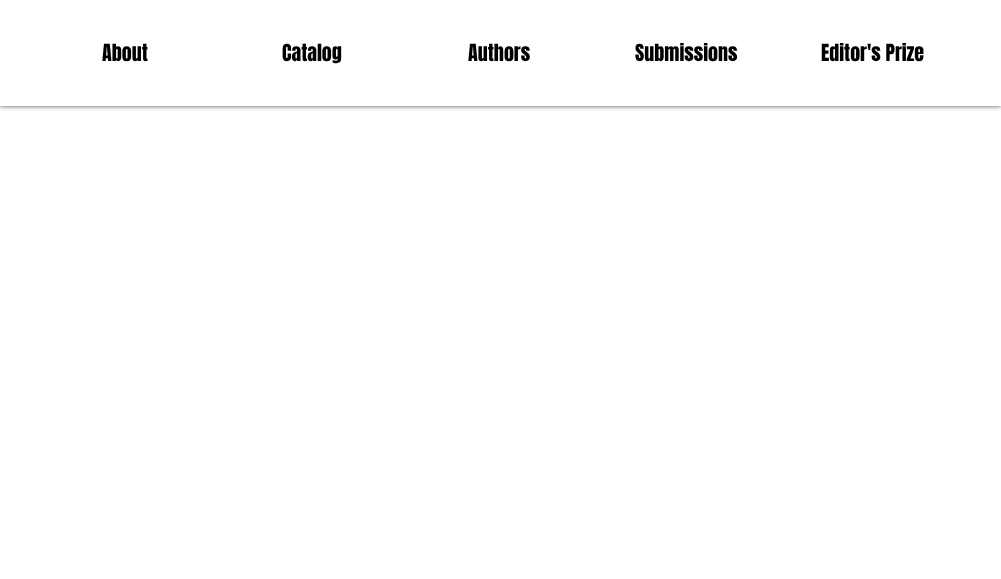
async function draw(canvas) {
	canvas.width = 1001;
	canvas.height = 579;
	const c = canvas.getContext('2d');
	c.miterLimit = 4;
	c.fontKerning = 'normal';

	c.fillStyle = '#fff';
	c.fillRect(0, 0, 1001, 579);
	c.fillStyle = '#000000b3';
	c.filter = 'blur(2.5px)';
	c.beginPath();
	c.rect(0, 0, 1001, 106);
	c.fill();
	c.filter = 'none';
	c.fillStyle = '#fff';
	c.fillRect(0, 0, 1001, 106);
	c.font = '20px Anton';
	c.fillStyle = '#000';
	for (const [text, x, y] of [
		['About', 102, 61],
		['Catalog', 282, 61],
		['Authors', 468, 61],
		['Submissions', 635, 61],
		['Editor\'s Prize', 821, 61],
	]) {
		c.fillText(text, x, y);
	}
}

draw(document.querySelector('canvas'));
